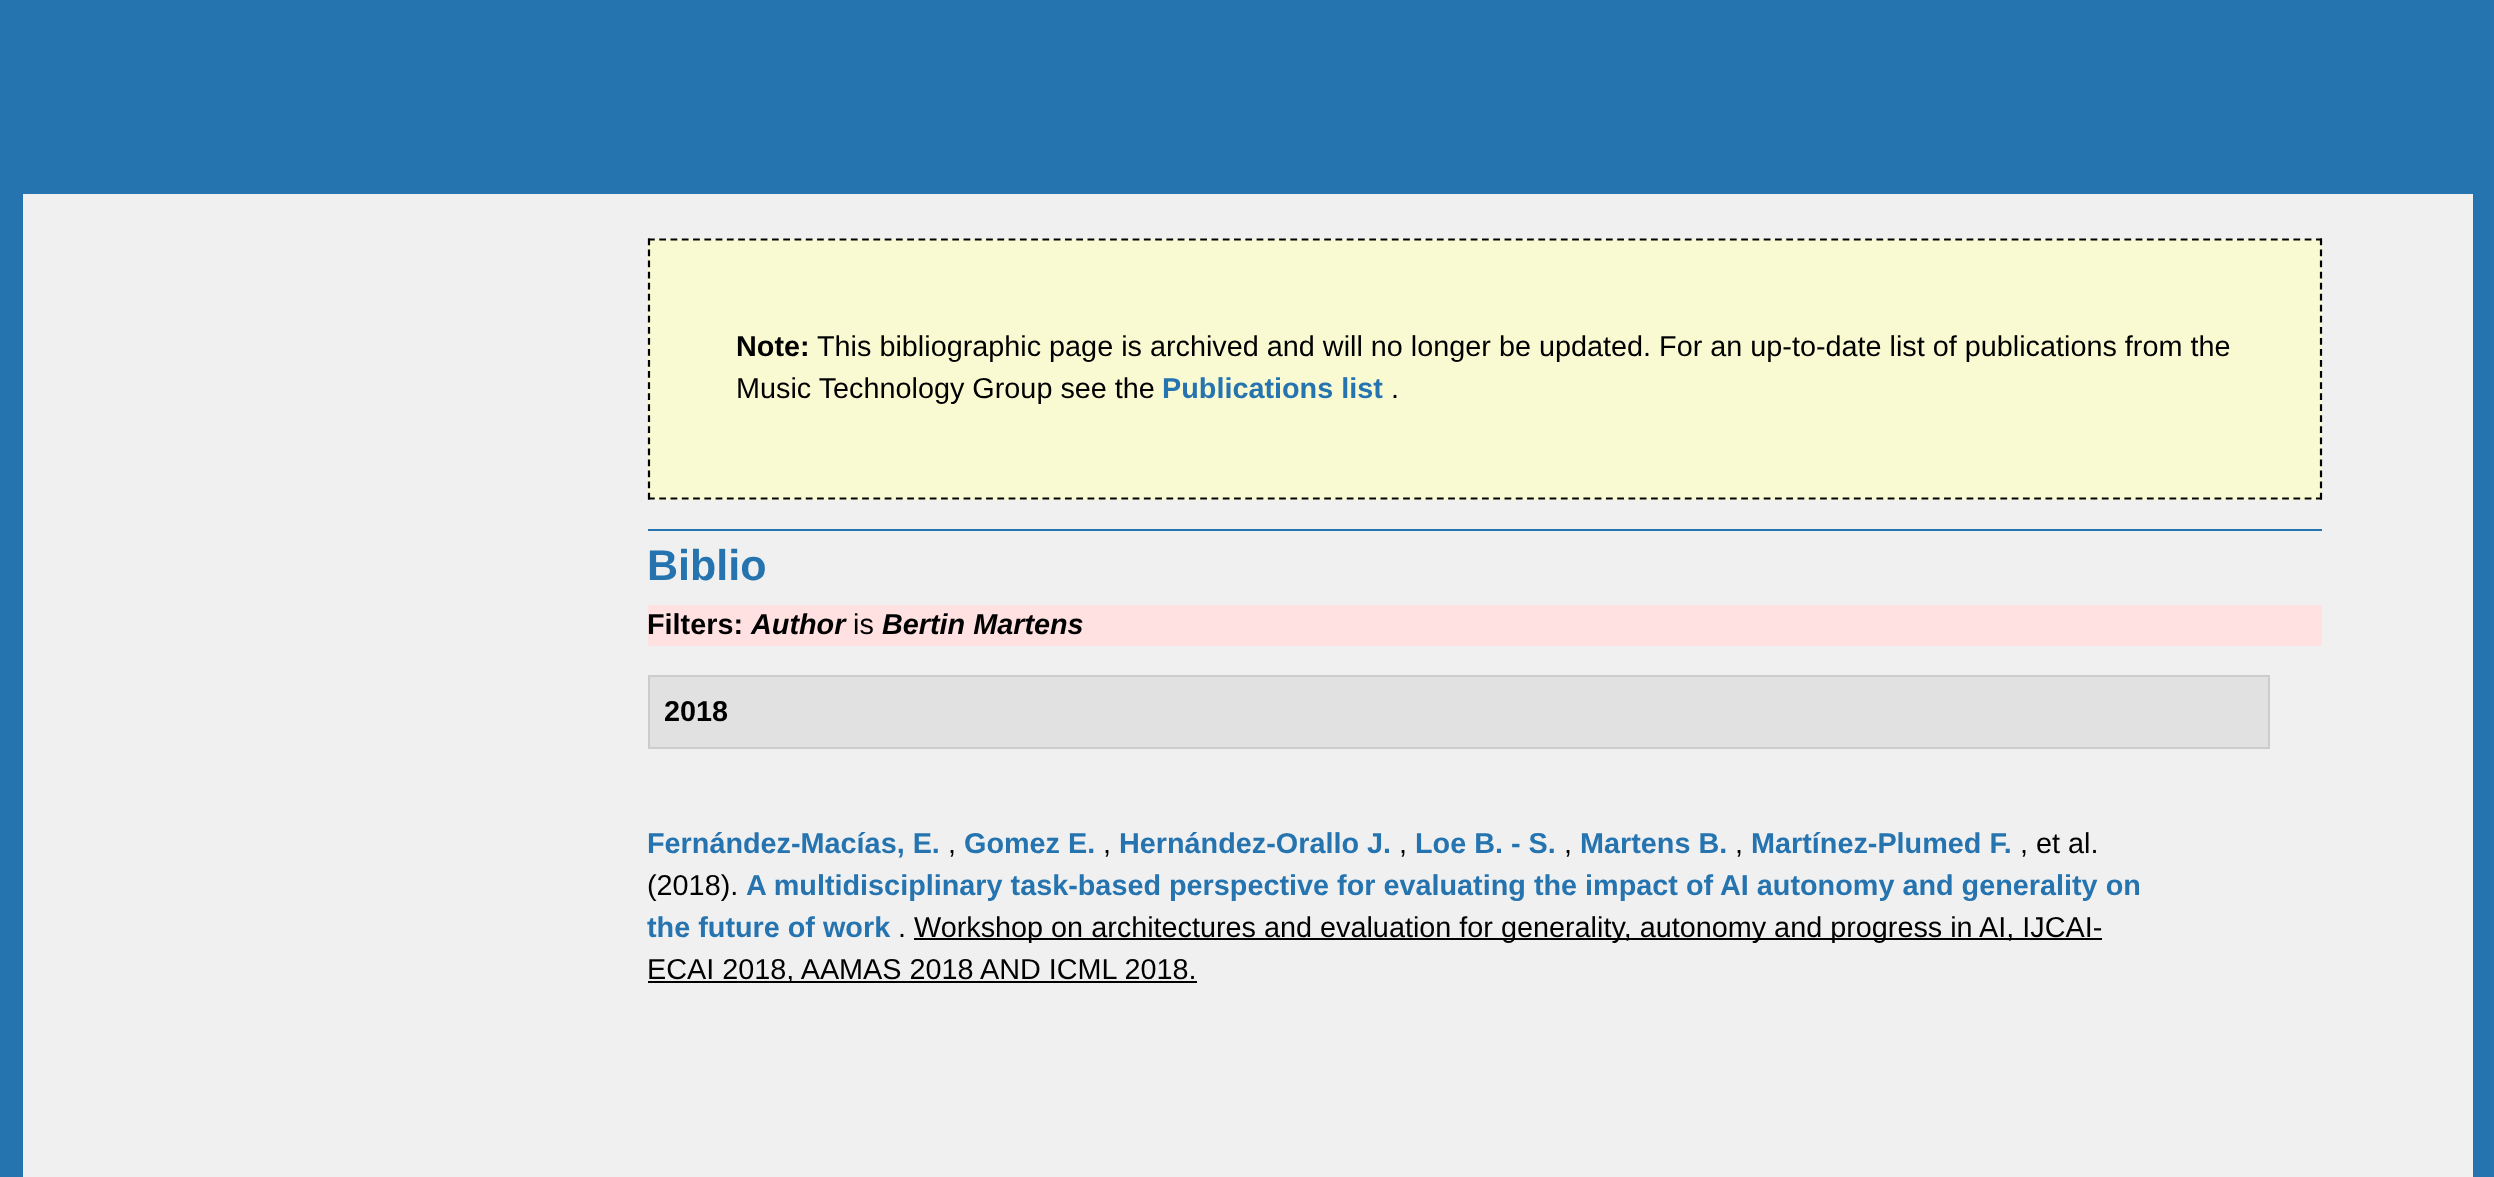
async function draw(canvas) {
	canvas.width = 2494;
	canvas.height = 1177;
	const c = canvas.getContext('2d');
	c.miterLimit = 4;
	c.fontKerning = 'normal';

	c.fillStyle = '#2574b0';
	c.fillRect(0, 0, 2494, 1177);
	c.fillStyle = '#f0f0f0';
	c.fillRect(23, 194, 2450, 983);
	c.fillStyle = '#fafad2';
	c.fillRect(648, 239, 1674, 261);
	c.beginPath();
	c.moveTo(648, 239.5);
	c.lineTo(2322, 239.5);
	c.strokeStyle = '#000';
	c.lineWidth = 2.2;
	c.setLineDash([6.75, 4.52]);
	c.stroke();
	c.beginPath();
	c.moveTo(2321, 238.5);
	c.lineTo(2321, 499.5);
	c.setLineDash([6.75, 4.3]);
	c.stroke();
	c.beginPath();
	c.moveTo(648, 498.5);
	c.lineTo(2322, 498.5);
	c.setLineDash([6.75, 4.52]);
	c.stroke();
	c.beginPath();
	c.moveTo(649, 238.5);
	c.lineTo(649, 499.5);
	c.setLineDash([6.75, 4.3]);
	c.stroke();
	c.font = 'bold 28.8px Liberation Sans';
	c.fillStyle = '#000';
	c.fillText('Note:', 736, 356);
	c.font = '28.8px Liberation Sans';
	c.fillText('This bibliographic page is archived and will no longer be updated. For an up-to-date list of publications from the', 817, 356);
	c.fillText('Music Technology Group see the', 736, 398);
	c.font = 'bold 28.8px Liberation Sans';
	c.fillStyle = '#2574b0';
	c.fillText('Publications list', 1162, 398);
	c.font = '28.8px Liberation Sans';
	c.fillStyle = '#000';
	c.fillText('.', 1391, 398);
	c.fillStyle = '#2574b0';
	c.fillRect(648, 529, 1674, 2);
	c.font = 'bold 43px Liberation Sans';
	c.fillText('Biblio', 647, 580);
	c.fillStyle = '#ffe1e1';
	c.fillRect(648, 605, 1674, 41);
	c.font = 'bold 28.8px Liberation Sans';
	c.fillStyle = '#000';
	c.fillText('Filters:', 647, 634);
	c.font = 'italic bold 28.8px Liberation Sans';
	c.fillText('Author', 751, 634);
	c.font = '28.8px Liberation Sans';
	c.fillText('is', 853, 634);
	c.font = 'italic bold 28.8px Liberation Sans';
	c.fillText('Bertin Martens', 882, 634);
	c.fillStyle = '#e1e1e1';
	c.beginPath();
	c.rect(649, 676, 1620, 72);
	c.fill();
	c.strokeStyle = '#ccc';
	c.lineWidth = 2;
	c.setLineDash([]);
	c.stroke();
	c.font = 'bold 28.8px Liberation Sans';
	c.fillStyle = '#000';
	c.fillText('2018', 664, 721);
	c.fillStyle = '#2574b0';
	c.fillText('Fernández-Macías, E.', 647, 853);
	c.font = '28.8px Liberation Sans';
	c.fillStyle = '#000';
	c.fillText(',', 948, 853);
	c.font = 'bold 28.8px Liberation Sans';
	c.fillStyle = '#2574b0';
	c.fillText('Gomez E.', 964, 853);
	c.font = '28.8px Liberation Sans';
	c.fillStyle = '#000';
	c.fillText(',', 1103, 853);
	c.font = 'bold 28.8px Liberation Sans';
	c.fillStyle = '#2574b0';
	c.fillText('Hernández-Orallo J.', 1119, 853);
	c.font = '28.8px Liberation Sans';
	c.fillStyle = '#000';
	c.fillText(',', 1399, 853);
	c.font = 'bold 28.8px Liberation Sans';
	c.fillStyle = '#2574b0';
	c.fillText('Loe B. - S.', 1415, 853);
	c.font = '28.8px Liberation Sans';
	c.fillStyle = '#000';
	c.fillText(',', 1564, 853);
	c.font = 'bold 28.8px Liberation Sans';
	c.fillStyle = '#2574b0';
	c.fillText('Martens B.', 1580, 853);
	c.font = '28.8px Liberation Sans';
	c.fillStyle = '#000';
	c.fillText(',', 1735, 853);
	c.font = 'bold 28.8px Liberation Sans';
	c.fillStyle = '#2574b0';
	c.fillText('Martínez-Plumed F.', 1751, 853);
	c.font = '28.8px Liberation Sans';
	c.fillStyle = '#000';
	c.fillText(', et al.', 2020, 853);
	c.fillText('(2018).', 647, 895);
	c.font = 'bold 28.8px Liberation Sans';
	c.fillStyle = '#2574b0';
	c.fillText('A multidisciplinary task-based perspective for evaluating the impact of AI autonomy and generality on', 746, 895);
	c.fillText('the future of work', 647, 937);
	c.font = '28.8px Liberation Sans';
	c.fillStyle = '#000';
	c.fillText('.', 898, 937);
	c.fillRect(914, 938, 1188, 2);
	c.fillText('Workshop on architectures and evaluation for generality, autonomy and progress in AI, IJCAI-', 914, 937);
	c.fillRect(648, 981, 549, 2);
	c.fillText('ECAI 2018, AAMAS 2018 AND ICML 2018.', 647, 979);
}

draw(document.querySelector('canvas'));
